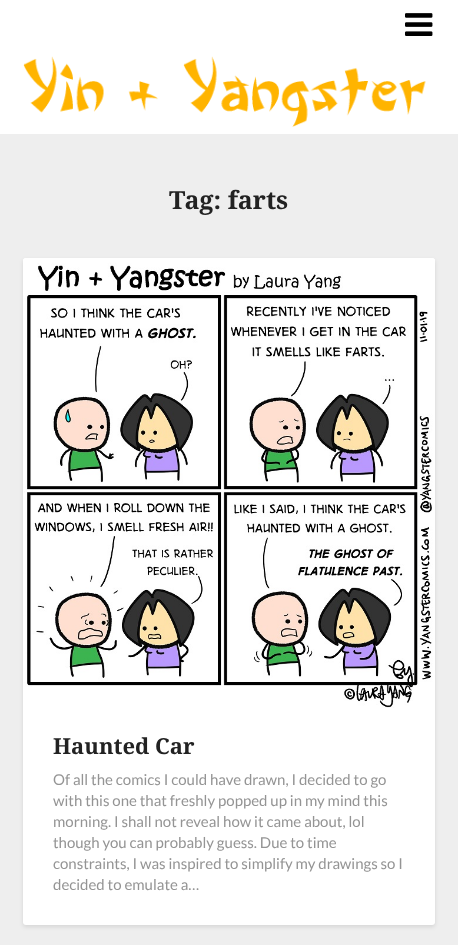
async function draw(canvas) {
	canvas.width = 458;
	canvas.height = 945;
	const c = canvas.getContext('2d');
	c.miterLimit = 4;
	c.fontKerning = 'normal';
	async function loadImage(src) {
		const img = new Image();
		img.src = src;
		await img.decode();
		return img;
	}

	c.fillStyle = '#eee';
	c.fillRect(0, 0, 458, 945);
	c.fillStyle = '#fff';
	c.fillRect(0, 0, 458, 134);
	c.drawImage(await loadImage('img1.png'), 405, 13, 28, 23);
	c.drawImage(await loadImage('img2.png'), 23, 56, 403, 71);
	c.font = 'bold 25px Noto Serif';
	c.fillStyle = '#222';
	c.fillText('Tag: farts', 169, 209);
	c.fillStyle = '#0000001a';
	c.filter = 'blur(2px)';
	c.beginPath();
	c.roundRect(23, 260, 412, 667, 3);
	c.fill();
	c.filter = 'none';
	c.fillStyle = '#fff';
	c.beginPath();
	c.roundRect(23, 258, 412, 667, 3);
	c.fill();
	c.drawImage(await loadImage('img3.png'), 23, 258, 412, 450);
	c.font = 'bold 22px Noto Serif';
	c.fillStyle = '#222';
	c.fillText('Haunted Car', 53, 754);
	c.font = '15px Lato';
	c.fillStyle = '#949494';
	for (const [text, x, y] of [
		['Of all the comics I could have drawn, I decided to go', 53, 785],
		['with this one that freshly popped up in my mind this', 53, 806],
		['morning. I shall not reveal how it came about, lol', 53, 827],
		['though you can probably guess. Due to time', 53, 848],
		['constraints, I was inspired to simplify my drawings so I', 53, 869],
		['decided to emulate a…', 53, 890],
	]) {
		c.fillText(text, x, y);
	}
}

draw(document.querySelector('canvas'));
